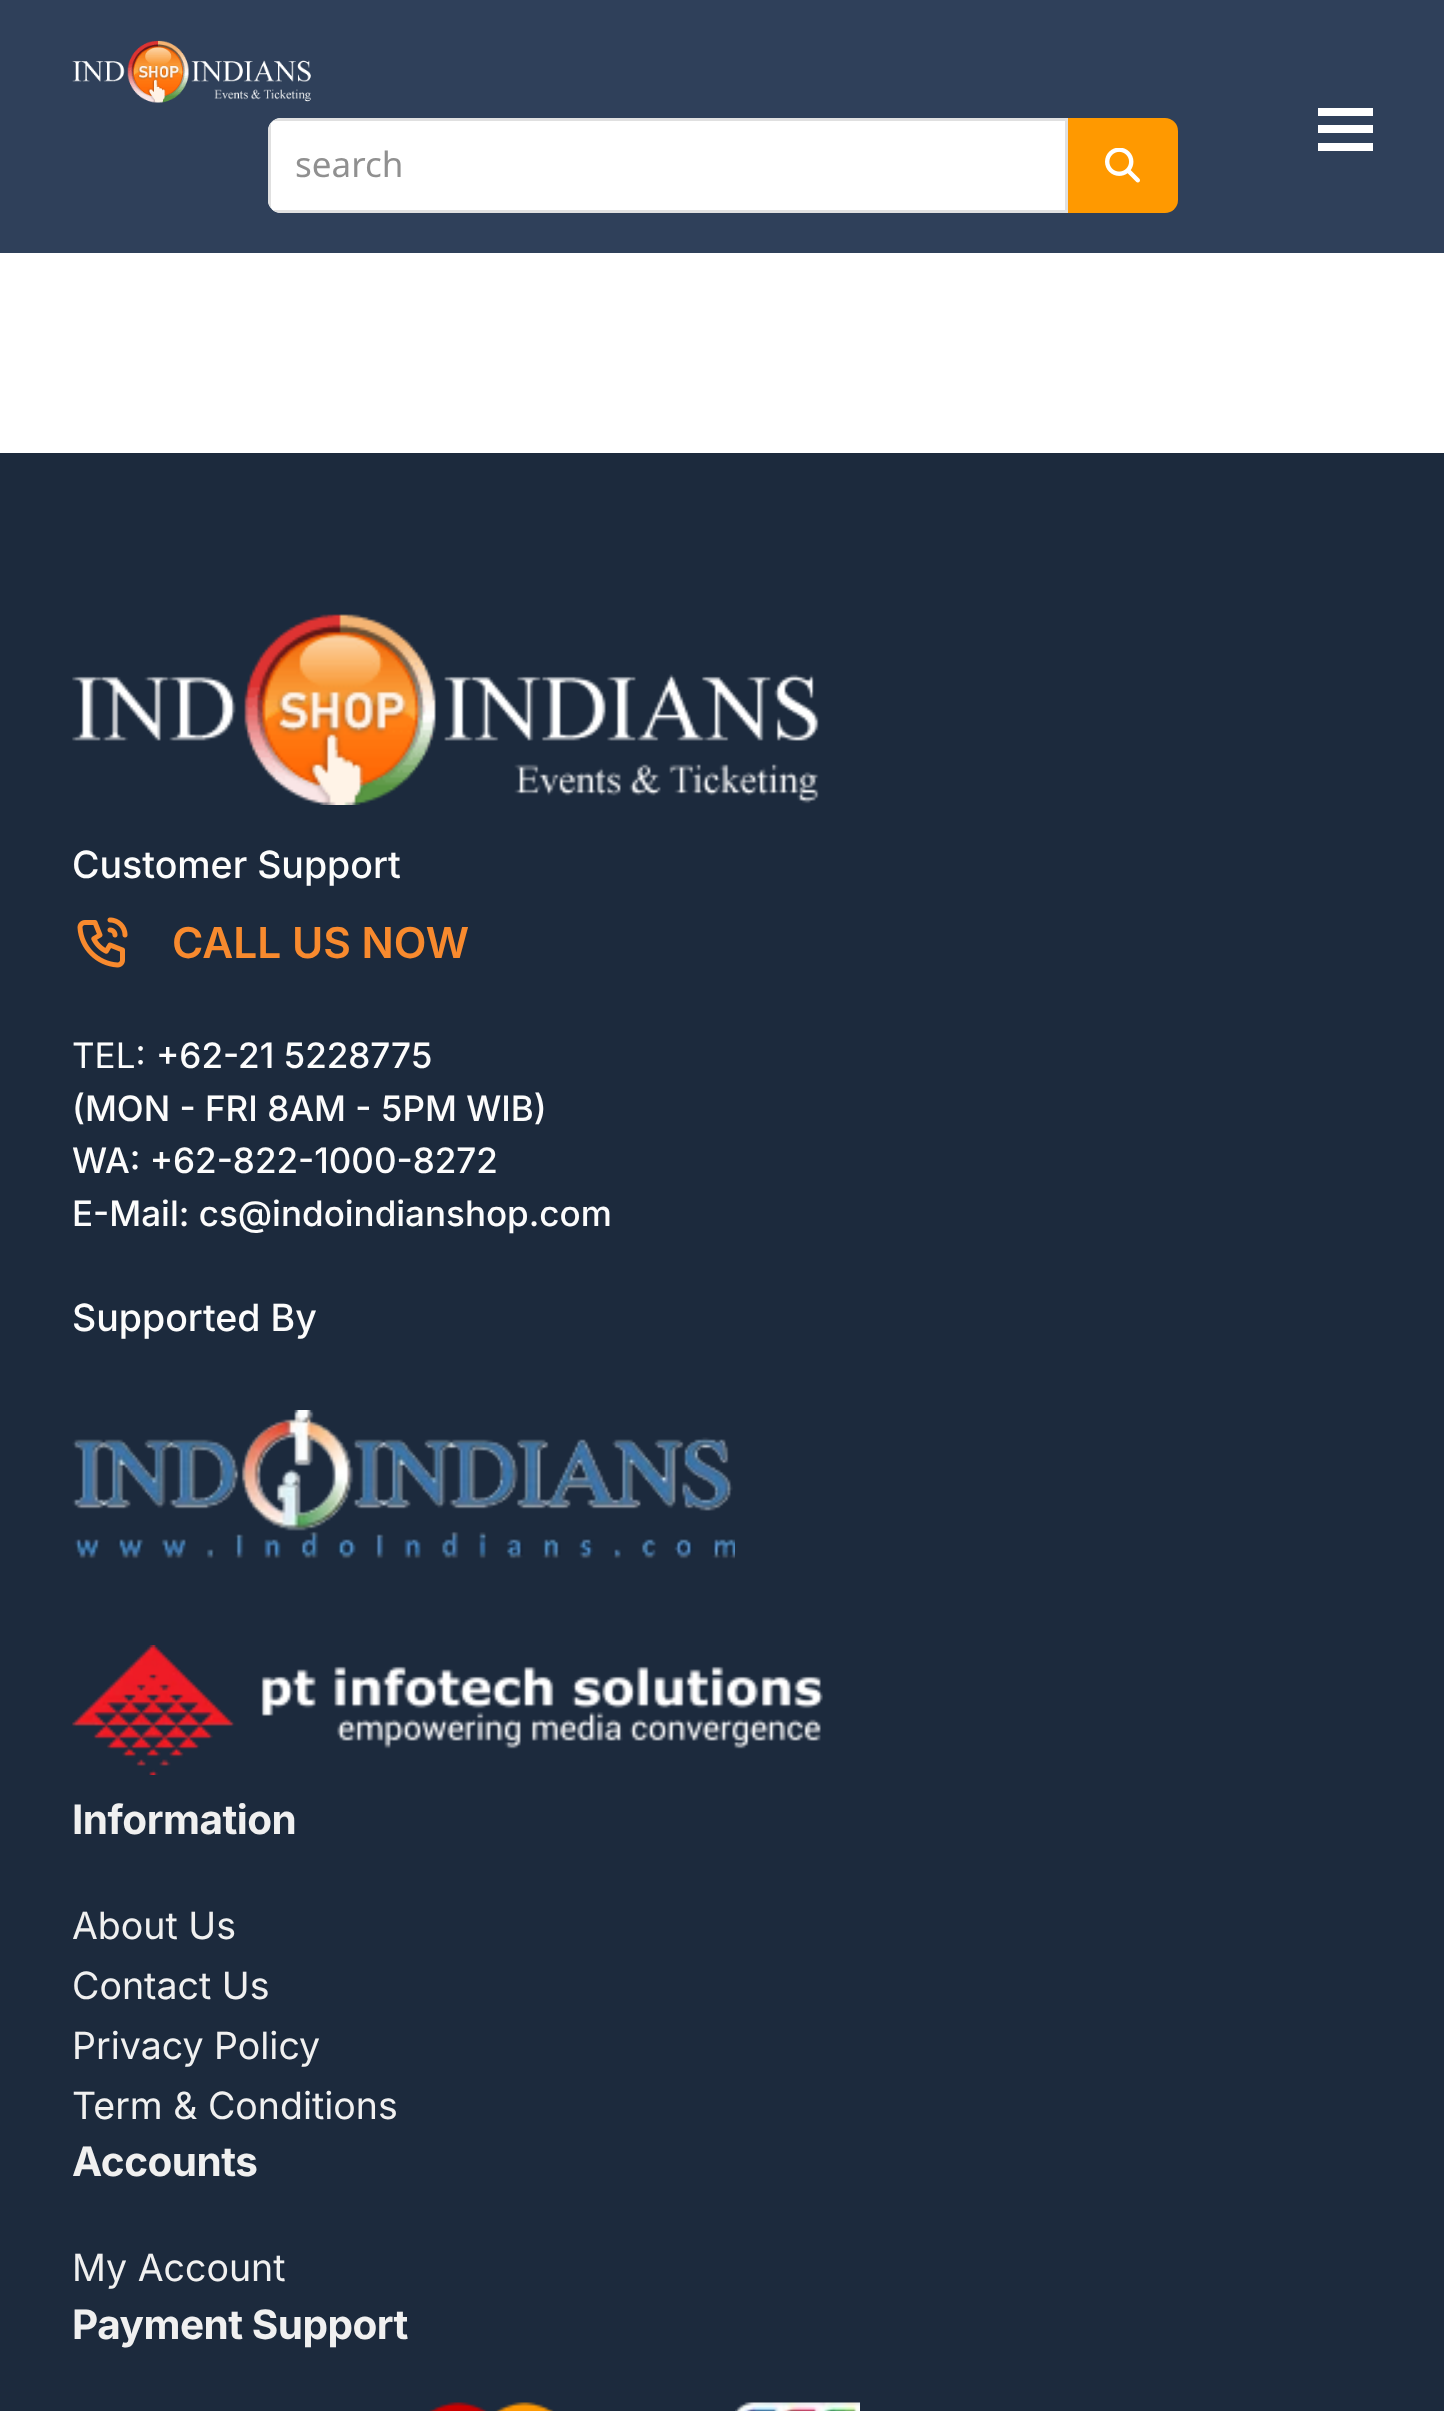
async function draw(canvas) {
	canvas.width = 1444;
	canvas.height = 2411;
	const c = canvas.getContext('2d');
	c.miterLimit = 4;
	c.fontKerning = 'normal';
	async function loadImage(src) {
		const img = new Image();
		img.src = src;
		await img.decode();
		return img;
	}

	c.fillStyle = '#fff';
	c.fillRect(0, 0, 1444, 2411);
	c.fillStyle = '#2f405a';
	c.fillRect(0, 0, 1444, 253);
	c.drawImage(await loadImage('img1.png'), 72, 40, 239, 63);
	for (const [x, y, w, h, color] of [
		[1318, 125, 55, 8, '#fff'],
		[1318, 108, 55, 8, '#fff'],
		[1318, 143, 55, 8, '#fff'],
	]) {
		c.fillStyle = color;
		c.fillRect(x, y, w, h);
	}
	c.beginPath();
	c.roundRect(268, 118, 800, 95, [13, 0, 0, 13]);
	c.fill();
	c.fillStyle = '#e0e0e0';
	c.beginPath();
	c.moveTo(268, 131);
	c.lineTo(268, 200);
	c.bezierCurveTo(268, 203, 269, 206, 271, 208);
	c.lineTo(271, 123);
	c.bezierCurveTo(269, 125, 268, 128, 268, 131);
	c.closePath();
	c.moveTo(281, 118);
	c.bezierCurveTo(278, 118, 275, 119, 273, 121);
	c.lineTo(1065, 121);
	c.lineTo(1065, 210);
	c.lineTo(273, 210);
	c.bezierCurveTo(275, 212, 278, 213, 281, 213);
	c.lineTo(1068, 213);
	c.lineTo(1068, 118);
	c.closePath();
	c.fill('evenodd');
	c.font = '35px Noto Sans';
	c.fillStyle = '#909090';
	c.fillText('search', 295, 177);
	c.fillStyle = '#f90';
	c.beginPath();
	c.roundRect(1068, 118, 110, 95, [0, 13, 13, 0]);
	c.fill();
	c.drawImage(await loadImage('img2.png'), 1105, 148, 35, 35);
	c.fillStyle = '#1c2a3d';
	c.fillRect(0, 453, 1444, 1958);
	c.drawImage(await loadImage('img3.png'), 72, 614, 747, 191);
	c.font = '500 37.5px Inter';
	c.fillStyle = '#fcfcfc';
	c.fillText('Customer Support', 72, 878);
	c.drawImage(await loadImage('img4.png'), 77, 917, 51, 51);
	c.font = '600 42.5px Inter';
	c.fillStyle = '#f88a2e';
	c.fillText('CALL US NOW', 172, 958);
	c.font = '35px Inter';
	c.fillStyle = '#fcfcfc';
	c.fillText('TEL:', 72, 1068);
	c.font = '500 35px Inter';
	for (const [text, x, y] of [
		['+62-21 5228775', 156, 1068],
		['(MON - FRI 8AM - 5PM WIB)', 72, 1121],
		['WA: +62-822-1000-8272', 72, 1173],
		['E-Mail: cs@indoindianshop.com', 72, 1226],
	]) {
		c.fillText(text, x, y);
	}
	c.font = '500 37.5px Inter';
	c.fillText('Supported By', 72, 1331);
	c.drawImage(await loadImage('img5.png'), 72, 1410, 663, 149);
	c.drawImage(await loadImage('img6.png'), 72, 1645, 751, 130);
	c.letterSpacing = '-0.5px';
	c.font = 'bold 40.5px Inter';
	c.fillStyle = '#f0f0f0';
	c.fillText('Information', 72, 1834);
	c.letterSpacing = '0px';
	c.font = '37.5px Inter';
	for (const [text, x, y] of [
		['About Us', 72, 1939],
		['Contact Us', 72, 1999],
		['Privacy Policy', 72, 2059],
		['Term & Conditions', 72, 2119],
	]) {
		c.fillText(text, x, y);
	}
	c.letterSpacing = '-0.5px';
	c.font = 'bold 40.5px Inter';
	c.fillText('Accounts', 72, 2176);
	c.letterSpacing = '0px';
	c.font = '37.5px Inter';
	c.fillText('My Account', 72, 2281);
	c.letterSpacing = '-0.5px';
	c.font = 'bold 40.5px Inter';
	c.fillText('Payment Support', 72, 2339);
	c.drawImage(await loadImage('img7.png'), 429, 2402, 125, 9);
	c.drawImage(await loadImage('img8.png'), 735, 2402, 125, 9);
}

draw(document.querySelector('canvas'));
